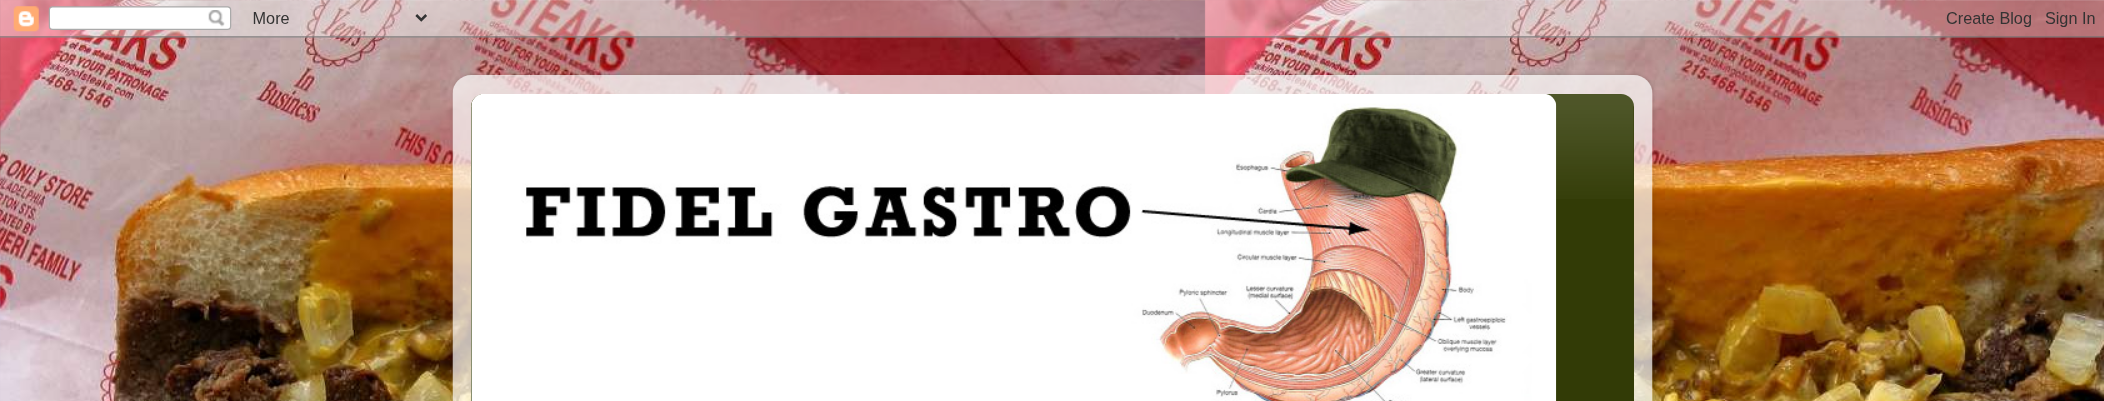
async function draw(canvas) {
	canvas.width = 2104;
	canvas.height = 401;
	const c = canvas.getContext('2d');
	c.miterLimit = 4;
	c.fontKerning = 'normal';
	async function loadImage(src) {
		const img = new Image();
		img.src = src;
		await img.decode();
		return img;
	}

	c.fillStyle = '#fff';
	c.fillRect(0, 0, 2104, 401);
	c.drawImage(await loadImage('img1.png'), 0, 0, 2104, 401);
	c.drawImage(await loadImage('img2.png'), 0, 0, 2104, 38);
	c.save();
	c.beginPath();
	c.moveTo(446, 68);
	c.lineTo(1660, 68);
	c.lineTo(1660, 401);
	c.lineTo(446, 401);
	c.closePath();
	c.moveTo(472, 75);
	c.lineTo(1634, 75);
	c.bezierCurveTo(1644.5, 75, 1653, 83.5, 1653, 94);
	c.lineTo(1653, 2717);
	c.bezierCurveTo(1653, 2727.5, 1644.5, 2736, 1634, 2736);
	c.lineTo(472, 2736);
	c.bezierCurveTo(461.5, 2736, 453, 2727.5, 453, 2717);
	c.lineTo(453, 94);
	c.bezierCurveTo(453, 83.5, 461.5, 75, 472, 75);
	c.closePath();
	c.clip('evenodd');
	c.fillStyle = '#00000026';
	c.filter = 'blur(2px)';
	c.beginPath();
	c.roundRect(453, 75, 1200, 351, 19);
	c.fill();
	c.filter = 'none';
	c.restore();
	c.drawImage(await loadImage('img3.png'), 452, 75, 1201, 326);
	c.fillStyle = '#323b06';
	c.beginPath();
	c.roundRect(471, 94, 1163, 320, 13);
	c.fill();
	c.drawImage(await loadImage('img4.png'), 471, 94, 1163, 105);
	c.drawImage(await loadImage('img5.png'), 471, 94, 1086, 307);
}

draw(document.querySelector('canvas'));
